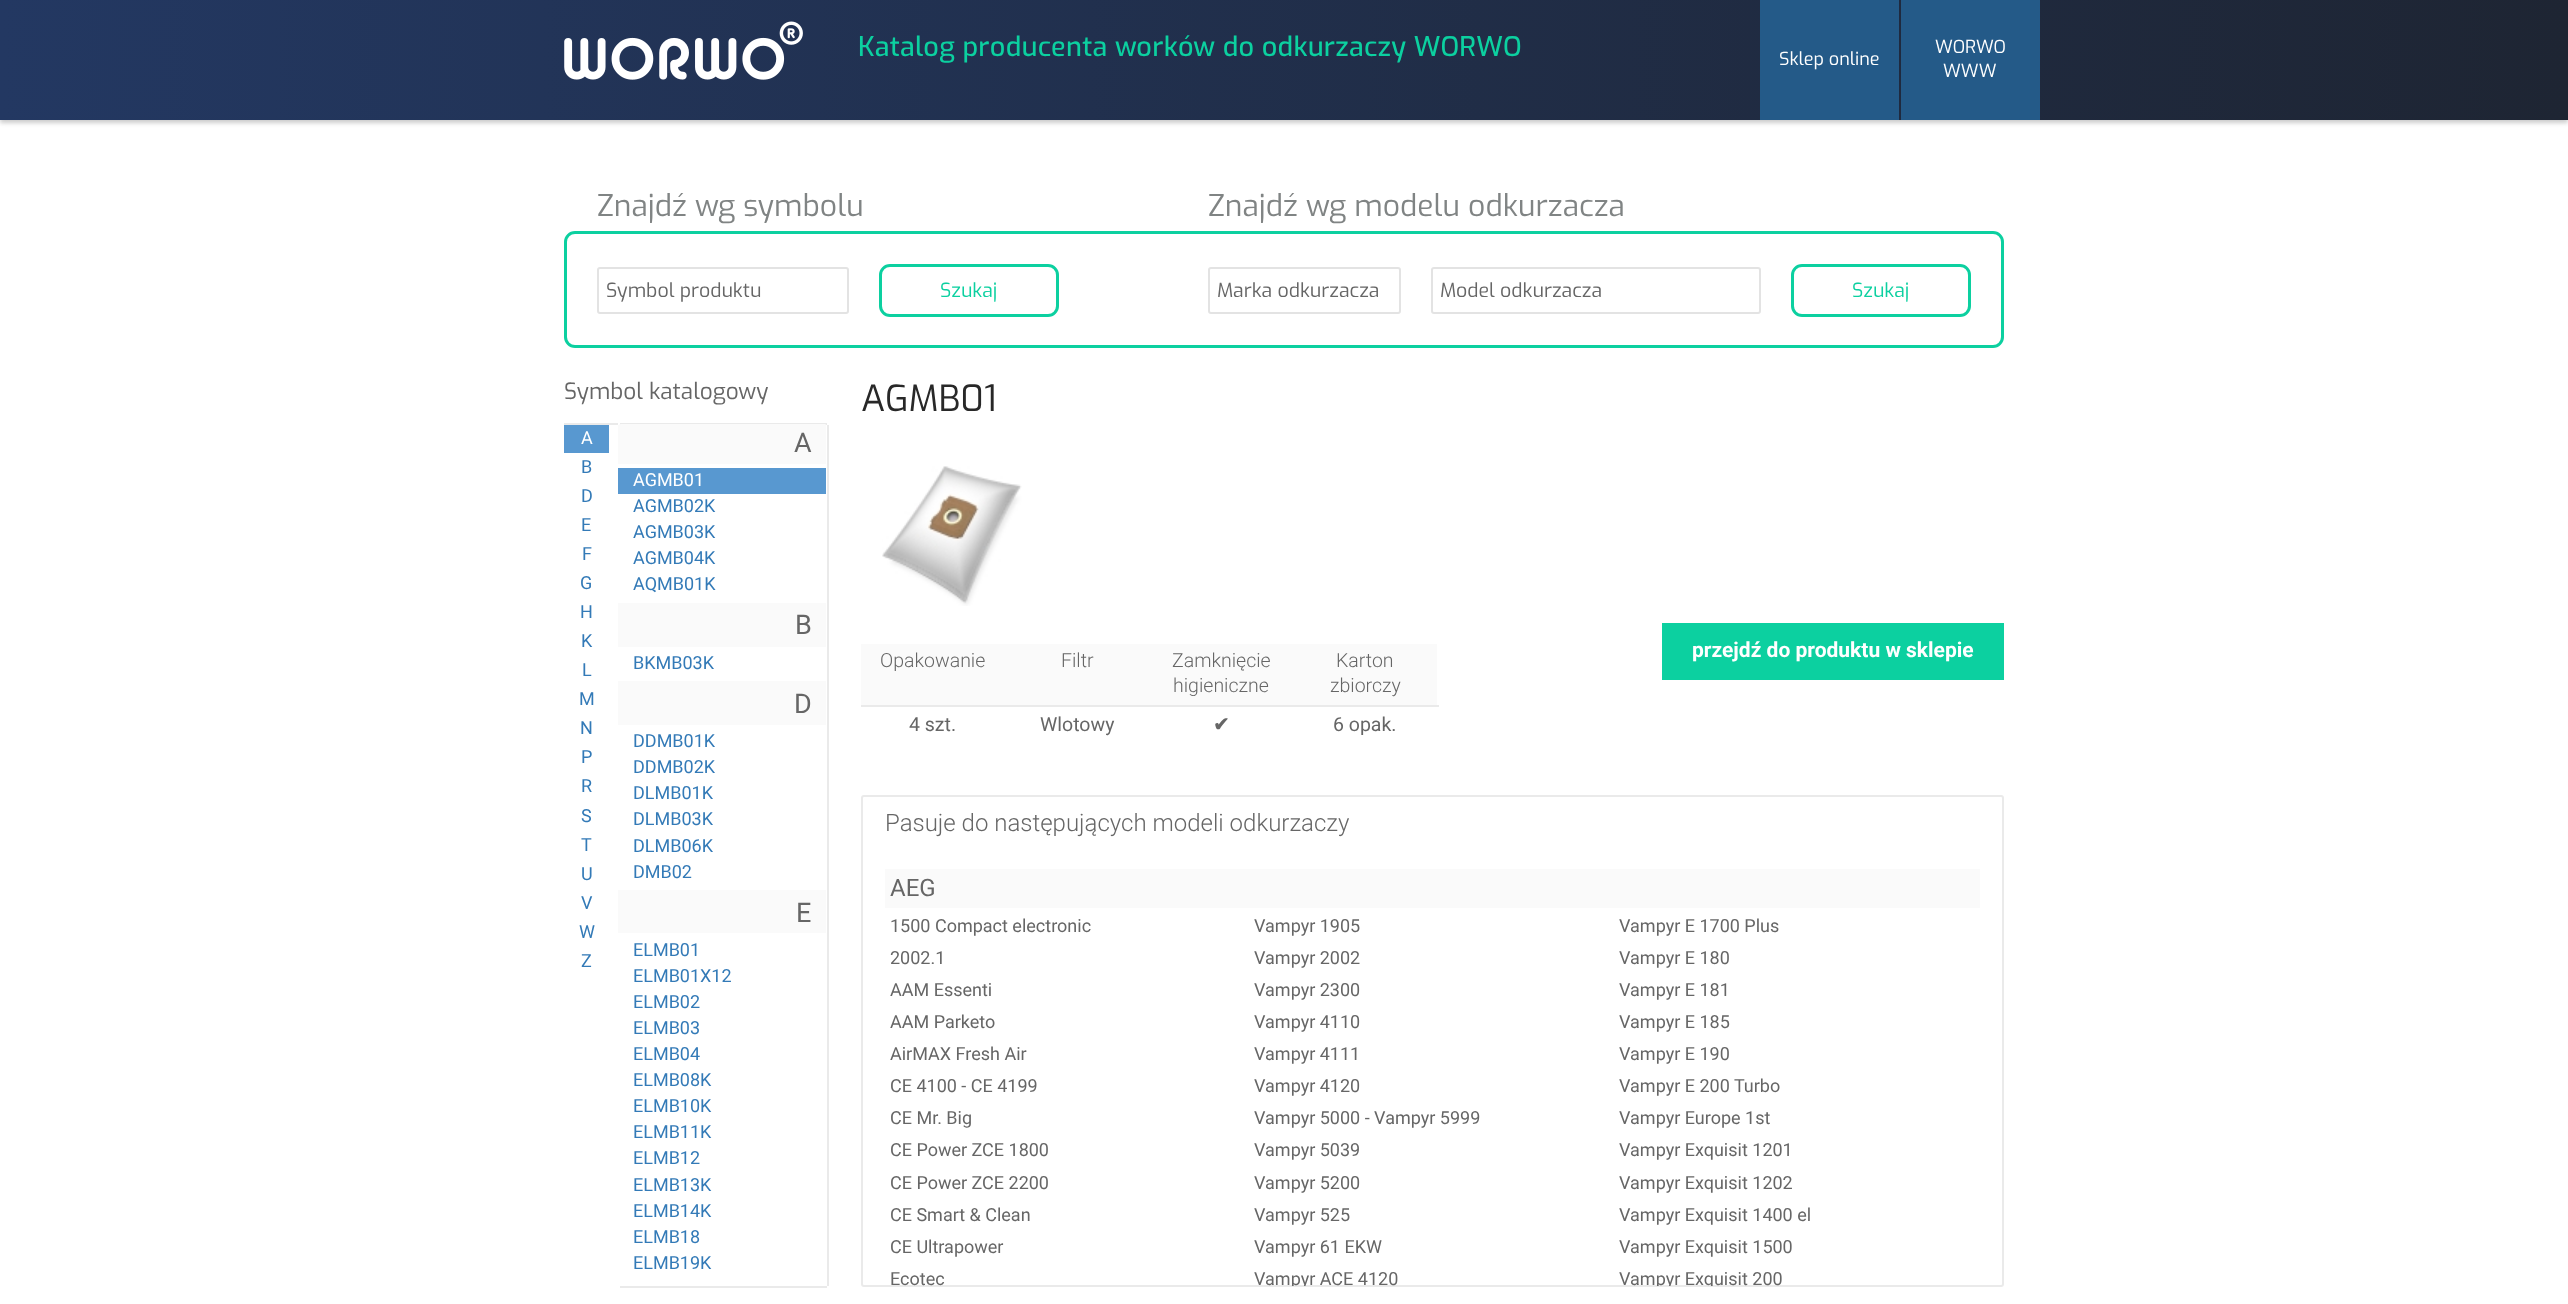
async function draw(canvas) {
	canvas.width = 2568;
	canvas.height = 1304;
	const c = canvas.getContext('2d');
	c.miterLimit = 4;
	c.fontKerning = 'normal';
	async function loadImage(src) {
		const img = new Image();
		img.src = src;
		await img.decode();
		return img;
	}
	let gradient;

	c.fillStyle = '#fff';
	c.fillRect(0, 0, 2568, 1304);
	c.fillStyle = '#00000033';
	c.filter = 'blur(2px)';
	c.beginPath();
	c.rect(0, 3, 2568, 120);
	c.fill();
	c.filter = 'none';
	gradient = c.createLinearGradient(0, 60, 2568, 60);
	gradient.addColorStop(0, '#233862');
	gradient.addColorStop(1, '#1e2533');
	c.fillStyle = gradient;
	c.fillRect(0, 0, 2568, 120);
	c.drawImage(await loadImage('img1.png'), 564, 21, 239, 59);
	c.letterSpacing = '0.25px';
	c.font = '500 27px Exo';
	c.fillStyle = '#0cd0a0';
	c.fillText('Katalog producenta worków do odkurzaczy WORWO', 858, 56);
	c.fillStyle = '#245a88';
	c.fillRect(1760, 0, 139, 120);
	c.letterSpacing = '0px';
	c.font = '18px Exo';
	c.fillStyle = '#fff';
	c.fillText('Sklep online', 1779, 65);
	c.fillStyle = '#245a88';
	c.fillRect(1901, 0, 139, 120);
	c.fillStyle = '#fff';
	c.fillText('WORWO', 1935, 53);
	c.fillText('WWW', 1943, 77);
	c.beginPath();
	c.roundRect(565.5, 232.5, 1437, 114, 9.5);
	c.strokeStyle = '#0cd0a0';
	c.lineWidth = 3;
	c.stroke();
	c.font = '30px Exo';
	c.fillStyle = '#808484';
	c.fillText('Znajdź wg symbolu', 597, 216);
	c.beginPath();
	c.roundRect(598, 268, 250, 45, 2);
	c.strokeStyle = '#e3e3e3';
	c.lineWidth = 2;
	c.stroke();
	c.font = '19.5px Exo';
	c.fillStyle = '#666';
	c.fillText('Symbol produktu', 606, 297);
	c.beginPath();
	c.roundRect(880.5, 265.5, 177, 50, 9.5);
	c.strokeStyle = '#0cd0a0';
	c.lineWidth = 3;
	c.stroke();
	c.fillStyle = '#0cd0a0';
	c.fillText('Szukaj', 940, 297);
	c.font = '30px Exo';
	c.fillStyle = '#808484';
	c.fillText('Znajdź wg modelu odkurzacza', 1208, 216);
	c.beginPath();
	c.roundRect(1209, 268, 191, 45, 2);
	c.strokeStyle = '#e3e3e3';
	c.lineWidth = 2;
	c.stroke();
	c.font = '19.5px Exo';
	c.fillStyle = '#666';
	c.fillText('Marka odkurzacza', 1217, 297);
	c.beginPath();
	c.roundRect(1432, 268, 328, 45, 2);
	c.stroke();
	c.fillText('Model odkurzacza', 1440, 297);
	c.beginPath();
	c.roundRect(1792.5, 265.5, 177, 50, 9.5);
	c.strokeStyle = '#0cd0a0';
	c.lineWidth = 3;
	c.stroke();
	c.fillStyle = '#0cd0a0';
	c.fillText('Szukaj', 1852, 297);
	c.font = '22.5px Exo';
	c.fillStyle = '#666';
	c.fillText('Symbol katalogowy', 564, 399);
	c.fillStyle = '#eaeaea';
	c.fillRect(564, 423, 54, 2);
	c.fillStyle = '#5898d0';
	c.fillRect(564, 425, 45, 28);
	c.font = '18px Roboto';
	c.fillStyle = '#fff';
	c.fillText('A', 581, 444);
	c.fillStyle = '#337ab7';
	for (const [text, x, y] of [
		['B', 581, 473],
		['D', 581, 502],
		['E', 581, 531],
		['F', 582, 560],
		['G', 580, 589],
		['H', 580, 618],
		['K', 581, 647],
		['L', 582, 676],
		['M', 579, 705],
		['N', 580, 734],
		['P', 581, 763],
		['R', 581, 792],
		['S', 581, 822],
		['T', 581, 851],
		['U', 581, 880],
		['V', 581, 909],
		['W', 579, 938],
		['Z', 581, 967],
	]) {
		c.fillText(text, x, y);
	}
	for (const [x, y, w, h, color] of [
		[620, 423, 207, 2, '#eaeaea'],
		[827, 425, 2, 861, '#eaeaea'],
		[620, 1286, 207, 2, '#eaeaea'],
	]) {
		c.fillStyle = color;
		c.fillRect(x, y, w, h);
	}
	c.fillStyle = '#fafafa';
	c.beginPath();
	c.moveTo(621, 424);
	c.bezierCurveTo(619, 424, 618, 425, 618, 426);
	c.lineTo(618, 464);
	c.lineTo(826, 464);
	c.lineTo(826, 426);
	c.bezierCurveTo(826, 425, 826, 424, 825, 424);
	c.closePath();
	c.fill();
	c.font = '27px Roboto';
	c.fillStyle = '#666';
	c.fillText('A', 794, 452);
	c.fillStyle = '#5898d0';
	c.fillRect(618, 468, 208, 26);
	c.font = '18px Roboto';
	c.fillStyle = '#fff';
	c.fillText('AGMB01', 633, 486);
	c.fillStyle = '#337ab7';
	for (const [text, x, y] of [
		['AGMB02K', 633, 512],
		['AGMB03K', 633, 538],
		['AGMB04K', 633, 564],
		['AQMB01K', 633, 590],
	]) {
		c.fillText(text, x, y);
	}
	c.fillStyle = '#fafafa';
	c.fillRect(618, 603, 208, 44);
	c.font = '27px Roboto';
	c.fillStyle = '#666';
	c.fillText('B', 795, 634);
	c.font = '18px Roboto';
	c.fillStyle = '#337ab7';
	c.fillText('BKMB03K', 633, 669);
	c.fillStyle = '#fafafa';
	c.fillRect(618, 681, 208, 44);
	c.font = '27px Roboto';
	c.fillStyle = '#666';
	c.fillText('D', 794, 713);
	c.font = '18px Roboto';
	c.fillStyle = '#337ab7';
	for (const [text, x, y] of [
		['DDMB01K', 633, 747],
		['DDMB02K', 633, 773],
		['DLMB01K', 633, 799],
		['DLMB03K', 633, 825],
		['DLMB06K', 633, 852],
		['DMB02', 633, 878],
	]) {
		c.fillText(text, x, y);
	}
	c.fillStyle = '#fafafa';
	c.fillRect(618, 890, 208, 43);
	c.font = '27px Roboto';
	c.fillStyle = '#666';
	c.fillText('E', 796, 922);
	c.font = '18px Roboto';
	c.fillStyle = '#337ab7';
	for (const [text, x, y] of [
		['ELMB01', 633, 956],
		['ELMB01X12', 633, 982],
		['ELMB02', 633, 1008],
		['ELMB03', 633, 1034],
		['ELMB04', 633, 1060],
		['ELMB08K', 633, 1086],
		['ELMB10K', 633, 1112],
		['ELMB11K', 633, 1138],
		['ELMB12', 633, 1164],
		['ELMB13K', 633, 1191],
		['ELMB14K', 633, 1217],
		['ELMB18', 633, 1243],
		['ELMB19K', 633, 1269],
	]) {
		c.fillText(text, x, y);
	}
	c.font = '36px Exo';
	c.fillStyle = '#282828';
	c.fillText('AGMB01', 861, 411);
	c.drawImage(await loadImage('img2.png'), 882, 466, 140, 140);
	c.fillStyle = '#fafafa';
	c.fillRect(861, 644, 576, 61);
	c.font = '300 19.5px Roboto';
	c.fillStyle = '#666';
	for (const [text, x, y] of [
		['Opakowanie', 880, 667],
		['Filtr', 1061, 667],
		['Zamknięcie', 1172, 667],
		['higieniczne', 1173, 692],
	]) {
		c.fillText(text, x, y);
	}
	c.fillStyle = '#eaeaea';
	c.fillRect(861, 705, 578, 2);
	c.fillStyle = '#666';
	c.fillText('Karton', 1336, 667);
	c.fillText('zbiorczy', 1330, 692);
	c.font = '19.5px Roboto';
	c.fillText('4 szt.', 909, 731);
	c.fillText('Wlotowy', 1040, 731);
	c.font = 'bold 19.5px DejaVu Sans';
	c.fillText('✔', 1213, 731);
	c.font = '19.5px Roboto';
	c.fillText('6 opak.', 1333, 731);
	c.fillStyle = '#0cd0a0';
	c.fillRect(1662, 623, 342, 57);
	c.font = 'bold 21px Roboto';
	c.fillStyle = '#fff';
	c.fillText('przejdź do produktu w sklepie', 1692, 657);
	c.beginPath();
	c.roundRect(862, 796, 1141, 490, 2);
	c.strokeStyle = '#eaeaea';
	c.lineWidth = 2;
	c.stroke();
	c.font = '300 24px Roboto';
	c.fillStyle = '#666';
	c.fillText('Pasuje do następujących modeli odkurzaczy', 885, 831);
	c.fillStyle = '#fafafa';
	c.fillRect(885, 869, 1095, 39);
	c.font = '24px Roboto';
	c.fillStyle = '#666';
	c.fillText('AEG', 890, 896);
	c.font = '18px Roboto';
	for (const [text, x, y] of [
		['1500 Compact electronic', 890, 932],
		['Vampyr 1905', 1254, 932],
		['Vampyr E 1700 Plus', 1619, 932],
		['2002.1', 890, 964],
		['Vampyr 2002', 1254, 964],
		['Vampyr E 180', 1619, 964],
		['AAM Essenti', 890, 996],
		['Vampyr 2300', 1254, 996],
		['Vampyr E 181', 1619, 996],
		['AAM Parketo', 890, 1028],
		['Vampyr 4110', 1254, 1028],
		['Vampyr E 185', 1619, 1028],
		['AirMAX Fresh Air', 890, 1060],
		['Vampyr 4111', 1254, 1060],
		['Vampyr E 190', 1619, 1060],
		['CE 4100 - CE 4199', 890, 1092],
		['Vampyr 4120', 1254, 1092],
		['Vampyr E 200 Turbo', 1619, 1092],
		['CE Mr. Big', 890, 1124],
		['Vampyr 5000 - Vampyr 5999', 1254, 1124],
		['Vampyr Europe 1st', 1619, 1124],
		['CE Power ZCE 1800', 890, 1156],
		['Vampyr 5039', 1254, 1156],
		['Vampyr Exquisit 1201', 1619, 1156],
		['CE Power ZCE 2200', 890, 1189],
		['Vampyr 5200', 1254, 1189],
		['Vampyr Exquisit 1202', 1619, 1189],
		['CE Smart & Clean', 890, 1221],
		['Vampyr 525', 1254, 1221],
		['Vampyr Exquisit 1400 el', 1619, 1221],
		['CE Ultrapower', 890, 1253],
		['Vampyr 61 EKW', 1254, 1253],
		['Vampyr Exquisit 1500', 1619, 1253],
		['Ecotec', 890, 1285],
	]) {
		c.fillText(text, x, y);
	}
	c.save();
	c.beginPath();
	c.rect(863, 846, 1140, 440);
	c.clip();
	c.fillText('Vampyr ACE 4120', 1254, 1285);
	c.fillText('Vampyr Exquisit 200', 1619, 1285);
	c.restore();
}

draw(document.querySelector('canvas'));
